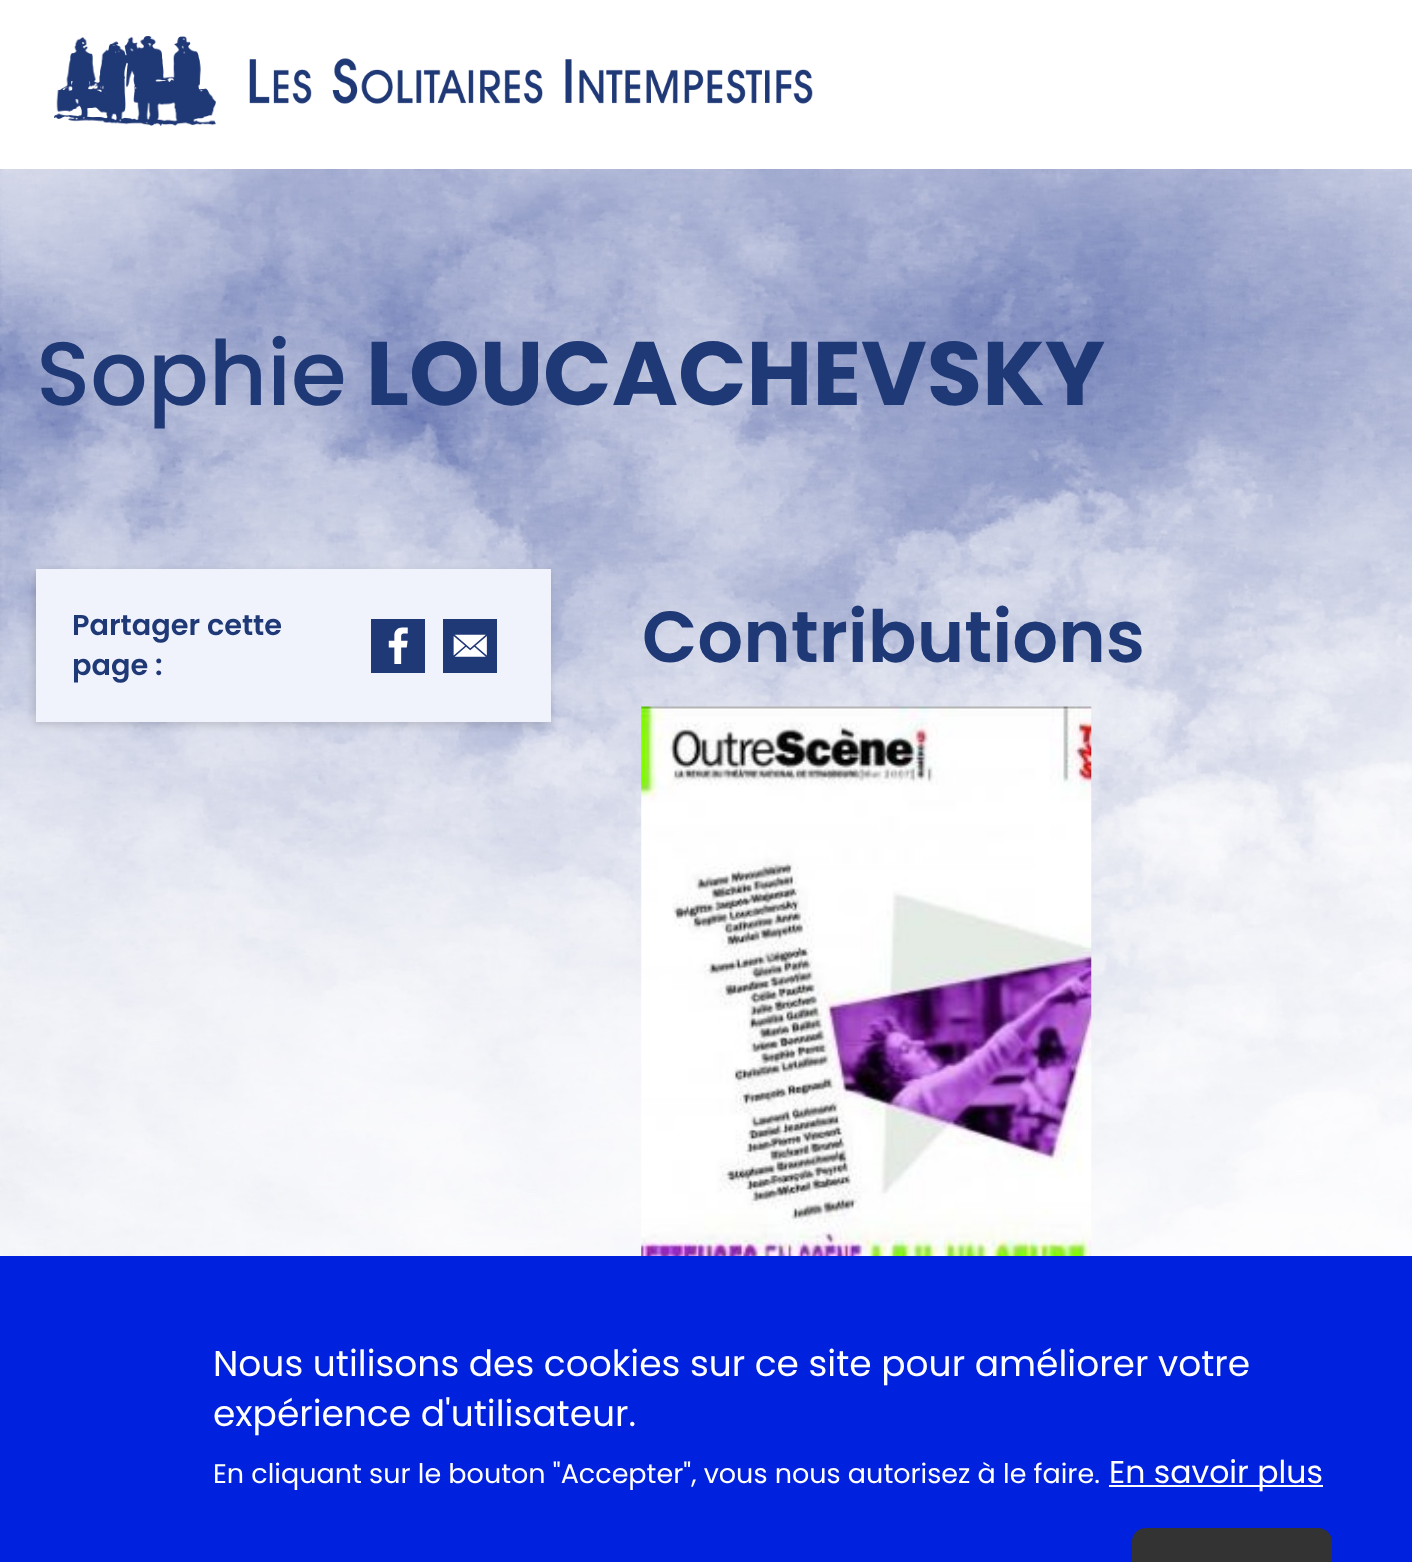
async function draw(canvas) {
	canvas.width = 1412;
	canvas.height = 1562;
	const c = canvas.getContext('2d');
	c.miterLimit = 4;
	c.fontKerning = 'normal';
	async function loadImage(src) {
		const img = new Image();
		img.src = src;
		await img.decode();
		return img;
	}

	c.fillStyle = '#fff';
	c.fillRect(0, 0, 1412, 1562);
	c.drawImage(await loadImage('img1.png'), 0, 169, 1412, 1087);
	c.drawImage(await loadImage('img2.png'), 54, 36, 162, 90);
	c.drawImage(await loadImage('img3.png'), 249, 58, 564, 46);
	c.font = '500 90px Poppins';
	c.fillStyle = '#1f3876';
	c.fillText('Sophie', 36, 405);
	c.font = 'bold 90px Poppins';
	c.fillText('LOUCACHEVSKY', 366, 405);
	c.fillStyle = '#00000026';
	c.filter = 'blur(4.5px)';
	c.beginPath();
	c.rect(34, 572, 515, 153);
	c.fill();
	c.filter = 'none';
	c.fillStyle = '#f0f3fc';
	c.fillRect(36, 569, 515, 153);
	c.font = '600 28.75px Poppins';
	c.fillStyle = '#1f3876';
	c.fillText('Partager cette', 72, 635);
	c.fillText('page :', 72, 675);
	c.fillRect(371, 619, 54, 54);
	c.drawImage(await loadImage('img4.png'), 388, 627, 20, 37);
	c.fillRect(443, 619, 54, 54);
	c.drawImage(await loadImage('img5.png'), 453, 634, 34, 23);
	c.font = '600 72px Poppins';
	c.fillText('Contributions', 642, 662);
	c.drawImage(await loadImage('img6.png'), 641, 706, 451, 550);
	c.fillStyle = '#0021de';
	c.fillRect(0, 1256, 1412, 306);
	c.font = '36px Poppins';
	c.fillStyle = '#fff';
	c.fillText('Nous utilisons des cookies sur ce site pour améliorer votre', 213, 1376);
	c.fillText('expérience d\'utilisateur.', 213, 1426);
	c.font = '27px Poppins';
	c.fillText('En cliquant sur le bouton "Accepter", vous nous autorisez à le faire.', 213, 1483);
	c.fillRect(1109, 1485, 214, 2);
	c.font = '31.5px Poppins';
	c.fillText('En savoir plus', 1109, 1483);
	c.fillStyle = '#333';
	c.beginPath();
	c.roundRect(1133, 1529, 198, 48, 13);
	c.fill();
	c.strokeStyle = '#333';
	c.lineWidth = 2;
	c.stroke();
}

draw(document.querySelector('canvas'));
